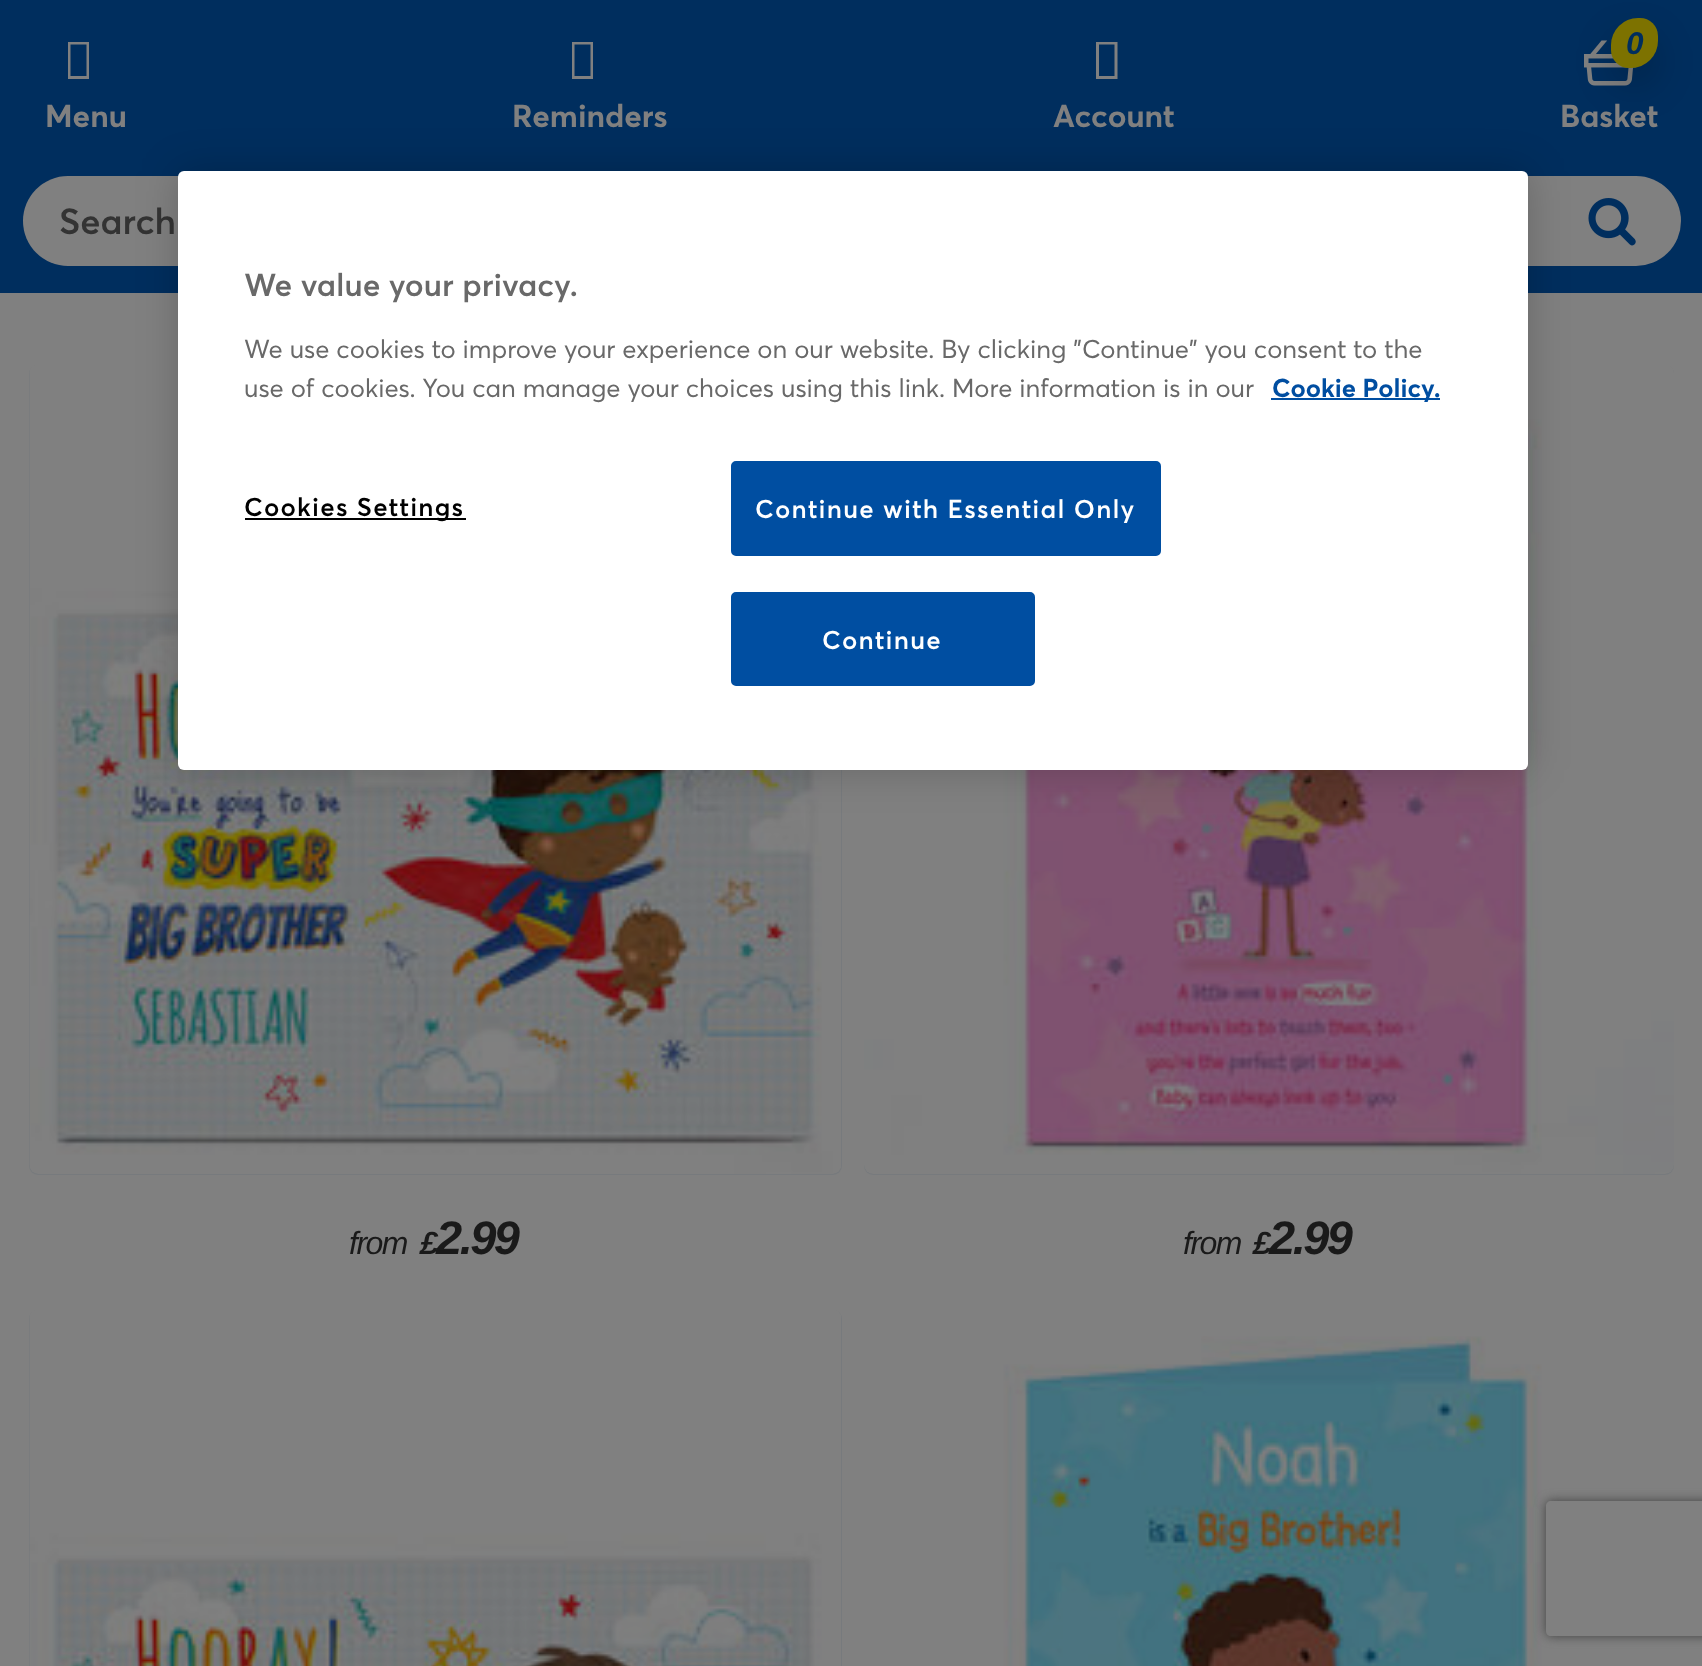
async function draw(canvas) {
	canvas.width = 1702;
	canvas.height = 1666;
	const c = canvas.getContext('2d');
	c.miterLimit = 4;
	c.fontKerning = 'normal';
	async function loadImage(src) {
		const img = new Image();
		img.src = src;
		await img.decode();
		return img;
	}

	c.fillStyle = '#808080';
	c.fillRect(0, 0, 1702, 1666);
	c.fillStyle = '#002e5e';
	c.fillRect(0, 0, 1702, 293);
	c.fillStyle = '#808080';
	c.beginPath();
	c.moveTo(68, 79);
	c.lineTo(68, 42);
	c.lineTo(89, 42);
	c.lineTo(89, 79);
	c.closePath();
	c.moveTo(70.5, 76);
	c.lineTo(86.5, 76);
	c.lineTo(86.5, 44.5);
	c.lineTo(70.5, 44.5);
	c.closePath();
	c.fill();
	c.font = 'bold 31.5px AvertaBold';
	c.fillText('Menu', 45, 127);
	c.beginPath();
	c.moveTo(572, 79);
	c.lineTo(572, 42);
	c.lineTo(593, 42);
	c.lineTo(593, 79);
	c.closePath();
	c.moveTo(574.5, 76);
	c.lineTo(590.5, 76);
	c.lineTo(590.5, 44.5);
	c.lineTo(574.5, 44.5);
	c.closePath();
	c.fill();
	c.fillText('Reminders', 512, 127);
	c.beginPath();
	c.moveTo(1096, 79);
	c.lineTo(1096, 42);
	c.lineTo(1117.5, 42);
	c.lineTo(1117.5, 79);
	c.closePath();
	c.moveTo(1099, 76);
	c.lineTo(1114.5, 76);
	c.lineTo(1114.5, 44.5);
	c.lineTo(1099, 44.5);
	c.closePath();
	c.fill();
	c.fillText('Account', 1053, 127);
	c.drawImage(await loadImage('img1.png'), 1584, 40, 52, 46);
	c.fillStyle = '#00000033';
	c.filter = 'blur(18px)';
	c.beginPath();
	c.roundRect(1611, 36, 47, 50, 27);
	c.fill();
	c.filter = 'none';
	c.fillStyle = '#7d7200';
	c.beginPath();
	c.roundRect(1611, 18, 47, 50, [27, 18, 27, 18]);
	c.fill();
	c.font = 'italic bold 31.5px Liberation Sans';
	c.fillStyle = '#002e5e';
	c.fillText('0', 1626, 54);
	c.font = 'bold 31.5px AvertaBold';
	c.fillStyle = '#808080';
	c.fillText('Basket', 1560, 127);
	c.beginPath();
	c.roundRect(23, 176, 1559, 90, [45, 0, 0, 45]);
	c.fill();
	c.font = '600 36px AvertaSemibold';
	c.fillStyle = '#333';
	c.fillText('Search', 59, 234);
	c.fillStyle = '#808080';
	c.beginPath();
	c.roundRect(1580, 176, 101, 90, [0, 45, 45, 0]);
	c.fill();
	c.drawImage(await loadImage('img2.png'), 1588, 198, 48, 48);
	c.fillStyle = '#777a7d';
	c.beginPath();
	c.roundRect(29, 365, 813, 810, 9);
	c.fill();
	c.drawImage(await loadImage('img3.png'), 29, 365, 812, 809);
	c.letterSpacing = '-1.5px';
	c.font = 'italic 32px Liberation Sans';
	c.fillStyle = '#1a1a1a';
	c.fillText('from', 349, 1254);
	c.font = 'italic bold 32px Liberation Sans';
	c.fillText('£', 420, 1254);
	c.letterSpacing = '-2.5px';
	c.font = 'italic bold 47px Liberation Sans';
	c.fillText('2.99', 436, 1254);
	c.fillStyle = '#777a7d';
	c.beginPath();
	c.roundRect(864, 365, 810, 810, 9);
	c.fill();
	c.drawImage(await loadImage('img4.png'), 864, 365, 810, 809);
	c.letterSpacing = '-1.5px';
	c.font = 'italic 32px Liberation Sans';
	c.fillStyle = '#1a1a1a';
	c.fillText('from', 1183, 1254);
	c.font = 'italic bold 32px Liberation Sans';
	c.fillText('£', 1253, 1254);
	c.letterSpacing = '-2.5px';
	c.font = 'italic bold 47px Liberation Sans';
	c.fillText('2.99', 1269, 1254);
	c.fillStyle = '#777a7d';
	c.beginPath();
	c.roundRect(29, 1310, 813, 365, 9);
	c.fill();
	c.drawImage(await loadImage('img5.png'), 29, 1310, 812, 356);
	c.drawImage(await loadImage('img6.png'), 864, 1310, 810, 356);
	c.fillStyle = '#00000033';
	c.filter = 'blur(20px)';
	c.beginPath();
	c.roundRect(178, 171, 1350, 599, 6);
	c.fill();
	c.filter = 'none';
	c.fillStyle = '#fff';
	c.beginPath();
	c.roundRect(178, 171, 1350, 599, 6);
	c.fill();
	c.letterSpacing = '0px';
	c.font = '600 31.5px AvertaSemibold';
	c.fillStyle = '#696969';
	c.fillText('We value your privacy.', 244, 296);
	c.font = '25.6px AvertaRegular';
	c.fillText('We use cookies to improve your experience on our website. By clicking "Continue" you consent to the', 244, 358);
	c.fillText('use of cookies. You can manage your choices using this link. More information is in our', 244, 397);
	c.fillStyle = '#004ea1';
	c.fillRect(1271, 398, 169, 2);
	c.font = 'bold 25.6px AvertaBold';
	c.fillText('Cookie Policy.', 1272, 397);
	c.fillStyle = '#000';
	c.fillRect(245, 518, 221, 2);
	c.letterSpacing = '1.25px';
	c.font = '600 25.6px AvertaSemibold';
	c.fillText('Cookies Settings', 244, 516);
	c.fillStyle = '#004ea1';
	c.beginPath();
	c.roundRect(732, 462, 428, 93, 4);
	c.fill();
	c.strokeStyle = '#004ea1';
	c.lineWidth = 2;
	c.stroke();
	c.fillStyle = '#fff';
	c.fillText('Continue with Essential Only', 755, 518);
	c.fillStyle = '#004ea1';
	c.beginPath();
	c.roundRect(732, 593, 302, 92, 4);
	c.fill();
	c.stroke();
	c.fillStyle = '#fff';
	c.fillText('Continue', 822, 649);
	c.save();
	c.beginPath();
	c.moveTo(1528, 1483);
	c.lineTo(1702, 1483);
	c.lineTo(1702, 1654);
	c.lineTo(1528, 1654);
	c.closePath();
	c.moveTo(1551, 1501);
	c.lineTo(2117, 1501);
	c.bezierCurveTo(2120, 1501, 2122, 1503, 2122, 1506);
	c.lineTo(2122, 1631);
	c.bezierCurveTo(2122, 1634, 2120, 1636, 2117, 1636);
	c.lineTo(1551, 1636);
	c.bezierCurveTo(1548, 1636, 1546, 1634, 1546, 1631);
	c.lineTo(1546, 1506);
	c.bezierCurveTo(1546, 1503, 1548, 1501, 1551, 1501);
	c.closePath();
	c.clip('evenodd');
	c.fillStyle = '#404040';
	c.filter = 'blur(5.5px)';
	c.beginPath();
	c.roundRect(1546, 1501, 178, 135, 5);
	c.fill();
	c.filter = 'none';
	c.restore();
}

draw(document.querySelector('canvas'));
